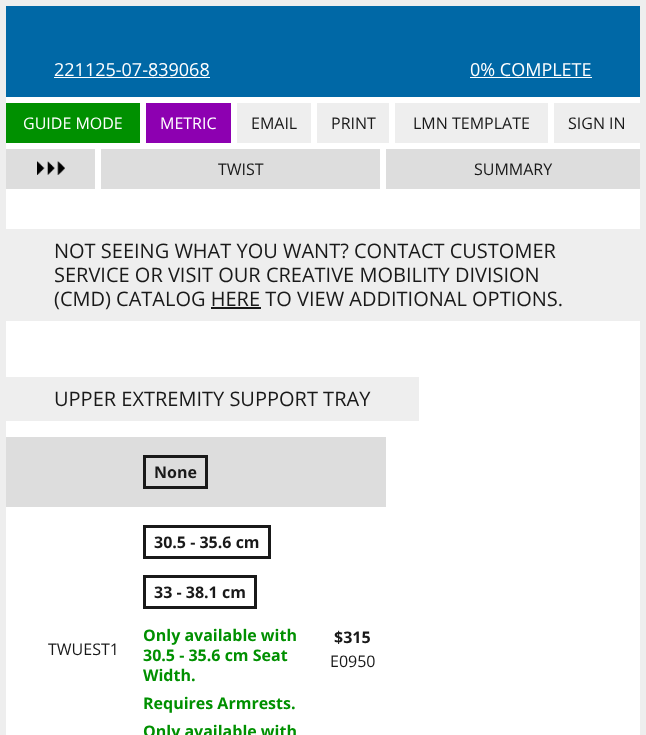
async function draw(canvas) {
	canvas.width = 646;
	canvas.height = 735;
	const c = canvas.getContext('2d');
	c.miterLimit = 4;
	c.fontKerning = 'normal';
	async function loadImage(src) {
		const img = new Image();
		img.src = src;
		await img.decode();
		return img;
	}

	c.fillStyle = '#eee';
	c.fillRect(0, 0, 646, 735);
	c.fillStyle = '#fff';
	c.fillRect(6, 97, 634, 638);
	c.fillStyle = '#0068a6';
	c.fillRect(6, 6, 634, 91);
	c.font = '18px Open Sans';
	c.fillStyle = '#fff';
	c.fillText('221125-07-839068', 54, 76);
	c.fillRect(54, 77, 156, 1);
	c.fillText('0% COMPLETE', 470, 76);
	for (const [x, y, w, h, color] of [
		[470, 77, 122, 1, '#fff'],
		[237, 103, 403, 40, '#eee'],
		[6, 103, 134, 40, '#009000'],
	]) {
		c.fillStyle = color;
		c.fillRect(x, y, w, h);
	}
	c.font = '16px Open Sans';
	c.fillStyle = '#fff';
	c.fillText('GUIDE MODE', 23, 129);
	c.fillStyle = '#8d00b1';
	c.fillRect(146, 103, 85, 40);
	c.fillStyle = '#fff';
	c.fillText('METRIC', 160, 129);
	c.fillRect(311, 103, 6, 40);
	c.fillStyle = '#191919';
	c.fillText('EMAIL', 251, 129);
	c.fillStyle = '#fff';
	c.fillRect(389, 103, 6, 40);
	c.fillStyle = '#191919';
	c.fillText('PRINT', 331, 129);
	c.fillStyle = '#fff';
	c.fillRect(548, 103, 6, 40);
	c.fillStyle = '#191919';
	c.fillText('LMN TEMPLATE', 413, 129);
	c.fillText('SIGN IN', 568, 129);
	c.fillStyle = '#ddd';
	c.fillRect(6, 149, 634, 40);
	c.fillStyle = '#fff';
	c.fillRect(95, 149, 6, 40);
	c.drawImage(await loadImage('img1.png'), 37, 161, 28, 14);
	c.fillRect(380, 149, 6, 40);
	c.fillStyle = '#191919';
	c.fillText('TWIST', 218, 175);
	c.fillText('SUMMARY', 474, 175);
	c.fillStyle = '#eee';
	c.fillRect(6, 229, 634, 92);
	c.font = '20px Open Sans';
	c.fillStyle = '#191919';
	for (const [text, x, y] of [
		['NOT SEEING WHAT YOU WANT? CONTACT CUSTOMER', 54, 258],
		['SERVICE OR VISIT OUR CREATIVE MOBILITY DIVISION', 54, 282],
		['(CMD) CATALOG HERE TO VIEW ADDITIONAL OPTIONS.', 54, 306],
	]) {
		c.fillText(text, x, y);
	}
	c.fillRect(211, 307, 50, 2);
	c.fillStyle = '#eee';
	c.fillRect(6, 377, 413, 44);
	c.fillStyle = '#191919';
	c.fillText('UPPER EXTREMITY SUPPORT TRAY', 54, 406);
	c.fillStyle = '#ddd';
	c.fillRect(6, 437, 380, 70);
	c.strokeStyle = '#191919';
	c.lineWidth = 3;
	c.strokeRect(144.5, 456.5, 62, 31);
	c.font = 'bold 16px Open Sans';
	c.fillStyle = '#191919';
	c.fillText('None', 154, 478);
	c.font = '16px Open Sans';
	c.fillText('TWUEST1', 48, 655);
	c.strokeRect(144.5, 526.5, 125, 31);
	c.font = 'bold 16px Open Sans';
	c.fillText('30.5 - 35.6 cm', 154, 548);
	c.strokeRect(144.5, 576.5, 111, 31);
	c.fillText('33 - 38.1 cm', 154, 598);
	c.fillStyle = '#009000';
	for (const [text, x, y] of [
		['Only available with', 143, 641],
		['30.5 - 35.6 cm Seat', 143, 661],
		['Width.', 143, 681],
		['Requires Armrests.', 143, 709],
		['Only available with', 143, 737],
	]) {
		c.fillText(text, x, y);
	}
	c.fillStyle = '#191919';
	c.fillText('$315', 334, 643);
	c.font = '16px Open Sans';
	c.fillText('E0950', 330, 667);
}

draw(document.querySelector('canvas'));
